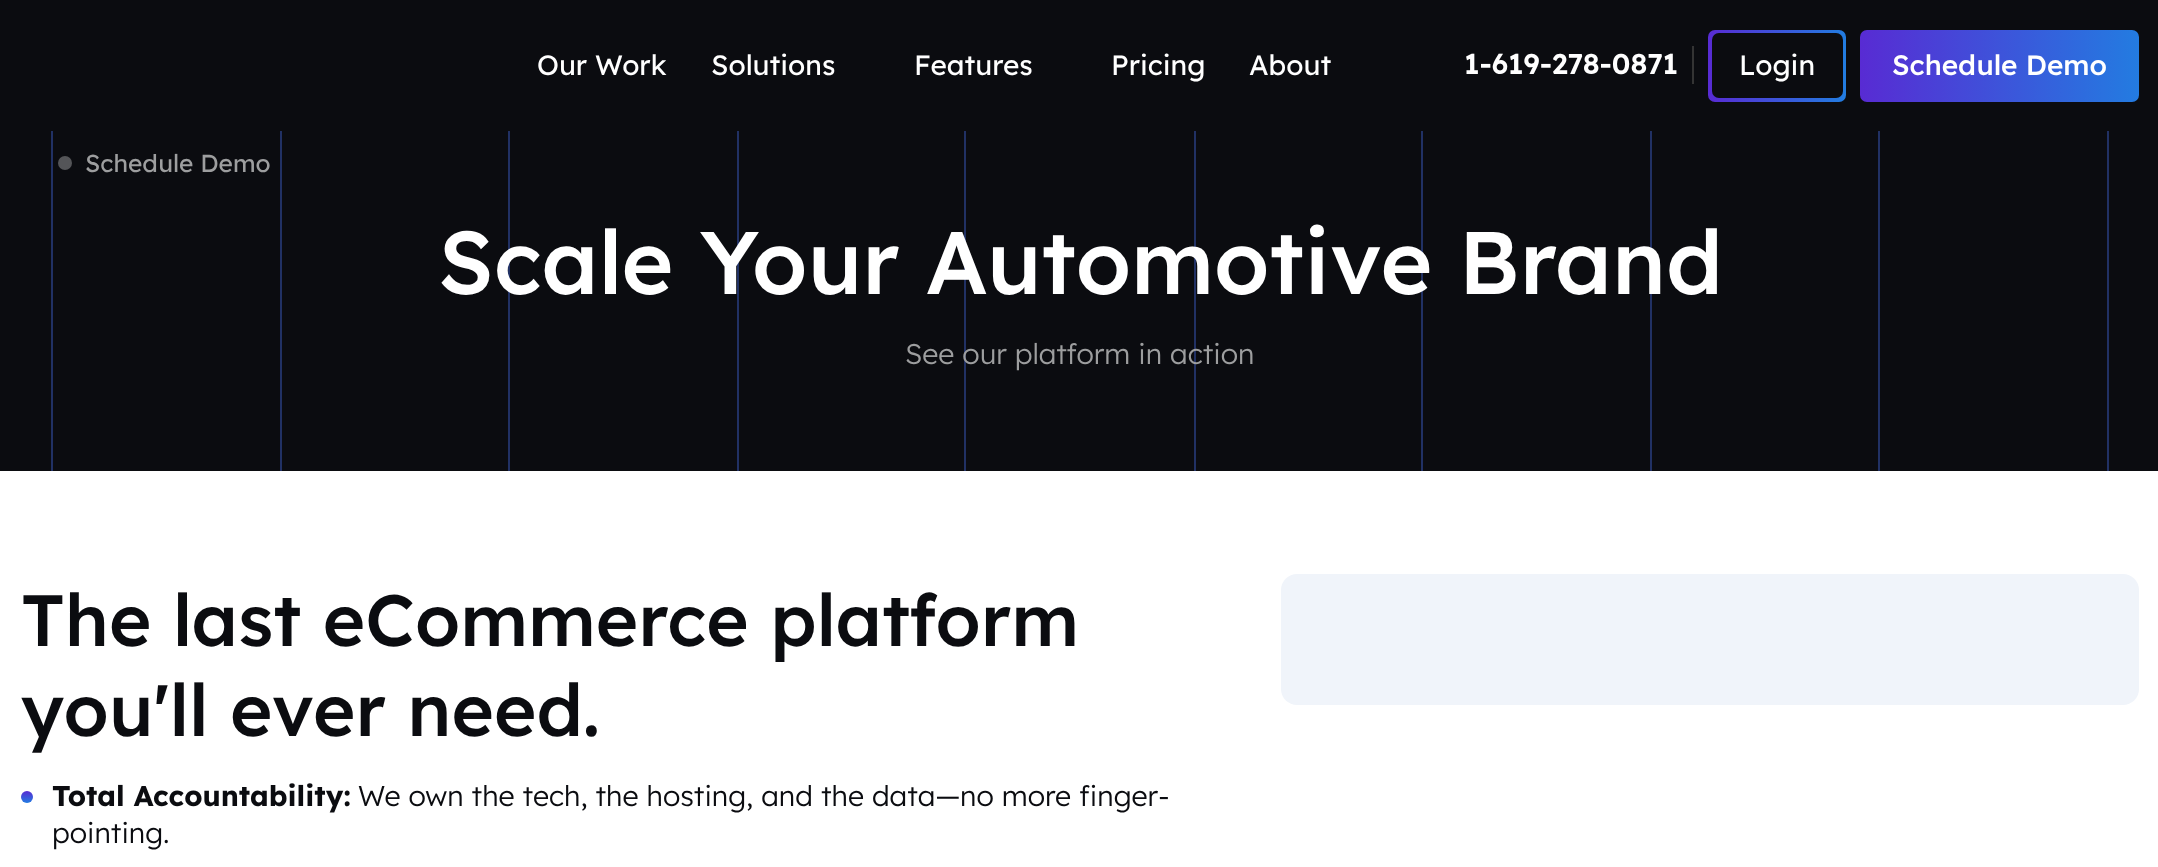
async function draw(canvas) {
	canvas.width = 2158;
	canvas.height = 867;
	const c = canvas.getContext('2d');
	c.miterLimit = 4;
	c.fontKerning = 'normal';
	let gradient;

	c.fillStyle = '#fff';
	c.fillRect(0, 0, 2158, 867);
	for (const [x, y, w, h, color] of [
		[0, 131, 2158, 340, '#0b0c10'],
		[51, 130, 2, 341, '#213164'],
		[280, 130, 2, 341, '#213164'],
		[508, 130, 2, 341, '#213164'],
		[737, 130, 2, 341, '#213164'],
		[964, 130, 2, 341, '#213164'],
		[1194, 130, 2, 341, '#213164'],
		[1421, 130, 2, 341, '#213164'],
		[1650, 130, 2, 341, '#213164'],
		[1878, 130, 2, 341, '#213164'],
		[2107, 130, 2, 341, '#213164'],
		[0, 0, 2158, 131, '#0b0c10'],
	]) {
		c.fillStyle = color;
		c.fillRect(x, y, w, h);
	}
	c.font = '28px Lexend Deca';
	c.fillStyle = '#fff';
	for (const [text, x, y] of [
		['Our Work', 537, 75],
		['Solutions', 711, 75],
		['Features', 914, 75],
		['Pricing', 1111, 75],
		['About', 1249, 75],
	]) {
		c.fillText(text, x, y);
	}
	c.fillStyle = '#343434';
	c.fillRect(1692, 46, 2, 38);
	c.font = '600 28.5px Lexend Deca';
	c.fillStyle = '#fff';
	c.fillText('1-619-278-0871', 1464, 74);
	gradient = c.createLinearGradient(1708, 66, 1846, 66);
	gradient.addColorStop(0, '#582bd3');
	gradient.addColorStop(1, '#227de1');
	c.fillStyle = gradient;
	c.beginPath();
	c.roundRect(1708, 30, 138, 72, 7);
	c.fill();
	c.fillStyle = '#0b0c10';
	c.beginPath();
	c.roundRect(1712, 33, 131, 65, 7);
	c.fill();
	c.font = '28px Lexend Deca';
	c.fillStyle = '#fff';
	c.fillText('Login', 1739, 75);
	gradient = c.createLinearGradient(1860, 66, 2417, 66);
	gradient.addColorStop(0, '#582bd3');
	gradient.addColorStop(0.51, '#227de1');
	gradient.addColorStop(1, '#582bd3');
	c.fillStyle = gradient;
	c.beginPath();
	c.roundRect(1860, 30, 279, 72, 7);
	c.fill();
	c.font = '500 28px Lexend Deca';
	c.fillStyle = '#fff';
	c.fillText('Schedule Demo', 1892, 75);
	c.fillStyle = '#545558';
	c.beginPath();
	c.arc(65, 163, 7, 0, 2 * Math.PI);
	c.fill();
	c.font = '24.5px Lexend Deca';
	c.fillStyle = '#9d9e9f';
	c.fillText('Schedule Demo', 85, 172);
	c.font = '500 88.75px Lexend Deca';
	c.fillStyle = '#fff';
	c.fillText('Scale Your Automotive Brand', 438, 294);
	c.font = '300 28.5px Lexend Deca';
	c.fillStyle = '#9d9e9f';
	c.fillText('See our platform in action', 905, 364);
	c.font = '500 72.5px Lexend Deca';
	c.fillStyle = '#0b0c10';
	c.fillText('The last eCommerce platform', 21, 646);
	c.fillText('you\'ll ever need.', 21, 736);
	gradient = c.createLinearGradient(27, 791, 27, 803);
	gradient.addColorStop(0, '#582bd3');
	gradient.addColorStop(1, '#227de1');
	c.fillStyle = gradient;
	c.beginPath();
	c.arc(27, 797, 6, 0, 2 * Math.PI);
	c.fill();
	c.font = 'bold 28.5px Lexend Deca';
	c.fillStyle = '#0b0c10';
	c.fillText('Total Accountability:', 52, 806);
	c.font = '300 28.5px Lexend Deca';
	c.fillText('We own the tech, the hosting, and the data—no more finger-', 358, 806);
	c.fillText('pointing.', 52, 843);
	c.fillStyle = '#f0f4fa';
	c.beginPath();
	c.roundRect(1281, 574, 858, 131, 16);
	c.fill();
}

draw(document.querySelector('canvas'));
